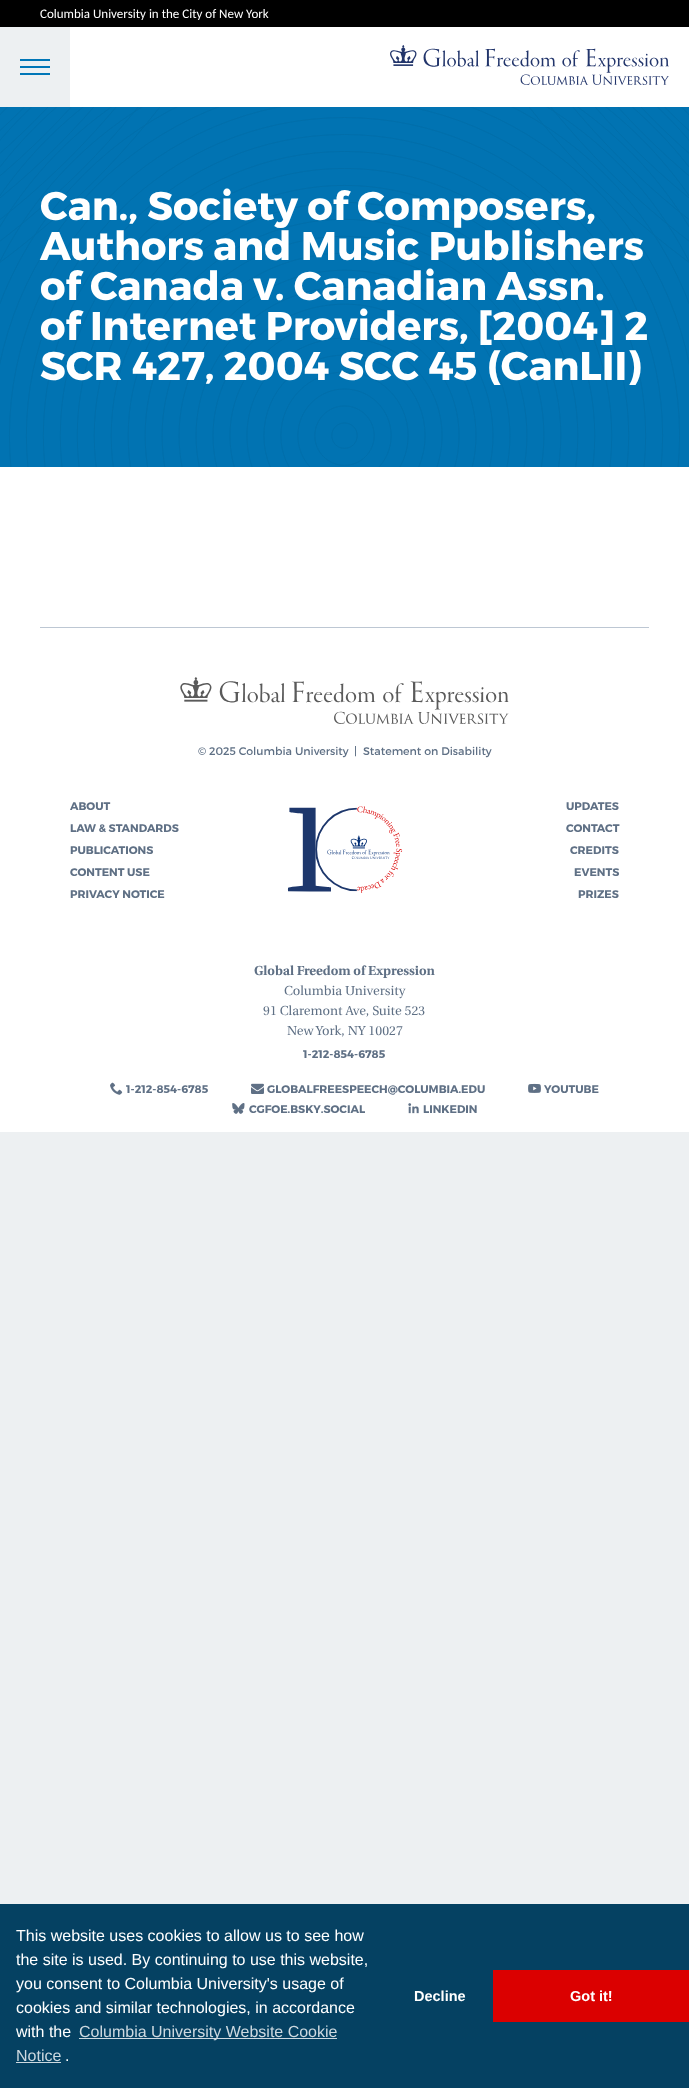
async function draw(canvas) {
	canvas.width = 689;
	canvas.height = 2088;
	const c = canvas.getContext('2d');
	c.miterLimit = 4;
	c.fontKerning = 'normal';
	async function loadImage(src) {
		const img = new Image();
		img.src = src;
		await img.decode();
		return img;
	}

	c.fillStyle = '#edf0f2';
	c.fillRect(0, 0, 689, 2088);
	c.fillStyle = '#000';
	c.fillRect(0, 0, 689, 27);
	c.font = '13px Carlito';
	c.fillStyle = '#fff';
	c.fillText('Columbia University in the City of New York', 40, 18);
	for (const [x, y, w, h, color] of [
		[70, 27, 619, 80, '#fff'],
		[20, 59, 30, 2, '#0076b7'],
		[20, 73, 30, 2, '#0076b7'],
		[20, 66, 30, 2, '#0076b7'],
	]) {
		c.fillStyle = color;
		c.fillRect(x, y, w, h);
	}
	c.drawImage(await loadImage('img1.png'), 390, 45, 279, 40);
	c.fillStyle = '#0173b2';
	c.fillRect(0, 107, 689, 360);
	c.drawImage(await loadImage('img2.png'), 0, 107, 689, 360);
	c.font = 'bold 40px Montserrat';
	c.fillStyle = '#fff';
	for (const [text, x, y] of [
		['Can., Society of Composers,', 40, 220],
		['Authors and Music Publishers', 40, 260],
		['of Canada v. Canadian Assn.', 40, 300],
		['of Internet Providers, [2004] 2', 40, 340],
		['SCR 427, 2004 SCC 45 (CanLII)', 40, 380],
	]) {
		c.fillText(text, x, y);
	}
	c.fillRect(0, 467, 689, 665);
	c.fillStyle = '#bdc7d3';
	c.fillRect(40, 627, 609, 1);
	c.drawImage(await loadImage('img3.png'), 180, 677, 329, 47);
	c.font = '11px Montserrat';
	c.fillStyle = '#5f7085';
	for (const [text, x, y] of [
		['© 2025 Columbia University', 198, 755],
		['|', 354, 755],
		['Statement on Disability', 363, 755],
	]) {
		c.fillText(text, x, y);
	}
	c.drawImage(await loadImage('img4.png'), 287, 806, 116, 87);
	c.font = 'bold 11px Montserrat';
	for (const [text, x, y] of [
		['ABOUT', 70, 810],
		['LAW & STANDARDS', 70, 832],
		['PUBLICATIONS', 70, 854],
		['CONTENT USE', 70, 876],
		['PRIVACY NOTICE', 70, 898],
		['UPDATES', 566, 810],
		['CONTACT', 566, 832],
		['CREDITS', 570, 854],
		['EVENTS', 574, 876],
		['PRIZES', 578, 898],
	]) {
		c.fillText(text, x, y);
	}
	c.font = 'bold 13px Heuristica';
	c.fillText('Global Freedom of Expression', 254, 975);
	c.font = '13px Heuristica';
	for (const [text, x, y] of [
		['Columbia University', 284, 995],
		['91 Claremont Ave, Suite 523', 263, 1015],
		['New York, NY 10027', 287, 1035],
	]) {
		c.fillText(text, x, y);
	}
	c.font = 'bold 11px Montserrat';
	c.fillText('1-212-854-6785', 303, 1058);
	c.drawImage(await loadImage('img5.png'), 110, 1082, 13, 13);
	c.fillText('1-212-854-6785', 126, 1093);
	c.drawImage(await loadImage('img6.png'), 251, 1083, 13, 11);
	c.fillText('GLOBALFREESPEECH@COLUMBIA.EDU', 267, 1093);
	c.drawImage(await loadImage('img7.png'), 528, 1083, 13, 10);
	c.fillText('YOUTUBE', 544, 1093);
	c.drawImage(await loadImage('img8.png'), 232, 1103, 13, 11);
	c.fillText('CGFOE.BSKY.SOCIAL', 249, 1113);
	c.drawImage(await loadImage('img9.png'), 408, 1103, 11, 11);
	c.fillText('LINKEDIN', 423, 1113);
	c.fillStyle = '#054162';
	c.fillRect(0, 1904, 689, 184);
	c.font = '16px Liberation Sans';
	c.fillStyle = '#fff';
	for (const [text, x, y] of [
		['This website uses cookies to allow us to see how', 16, 1941],
		['the site is used. By continuing to use this website,', 16, 1965],
		['you consent to Columbia University\'s usage of', 16, 1989],
		['cookies and similar technologies, in accordance', 16, 2013],
		['with the', 16, 2037],
	]) {
		c.fillText(text, x, y);
	}
	c.fillStyle = '#cdd9e0';
	c.fillRect(79, 2038, 258, 1);
	c.fillText('Columbia University Website Cookie', 79, 2037);
	c.fillText('Notice', 16, 2061);
	c.fillRect(16, 2062, 45, 1);
	c.fillStyle = '#fff';
	c.fillText('.', 65, 2061);
	c.font = 'bold 14.5px Liberation Sans';
	c.fillText('Decline', 414, 2001);
	c.fillStyle = '#db0000';
	c.fillRect(493, 1970, 196, 52);
	c.fillStyle = '#fff';
	c.fillText('Got it!', 570, 2001);
}

draw(document.querySelector('canvas'));
